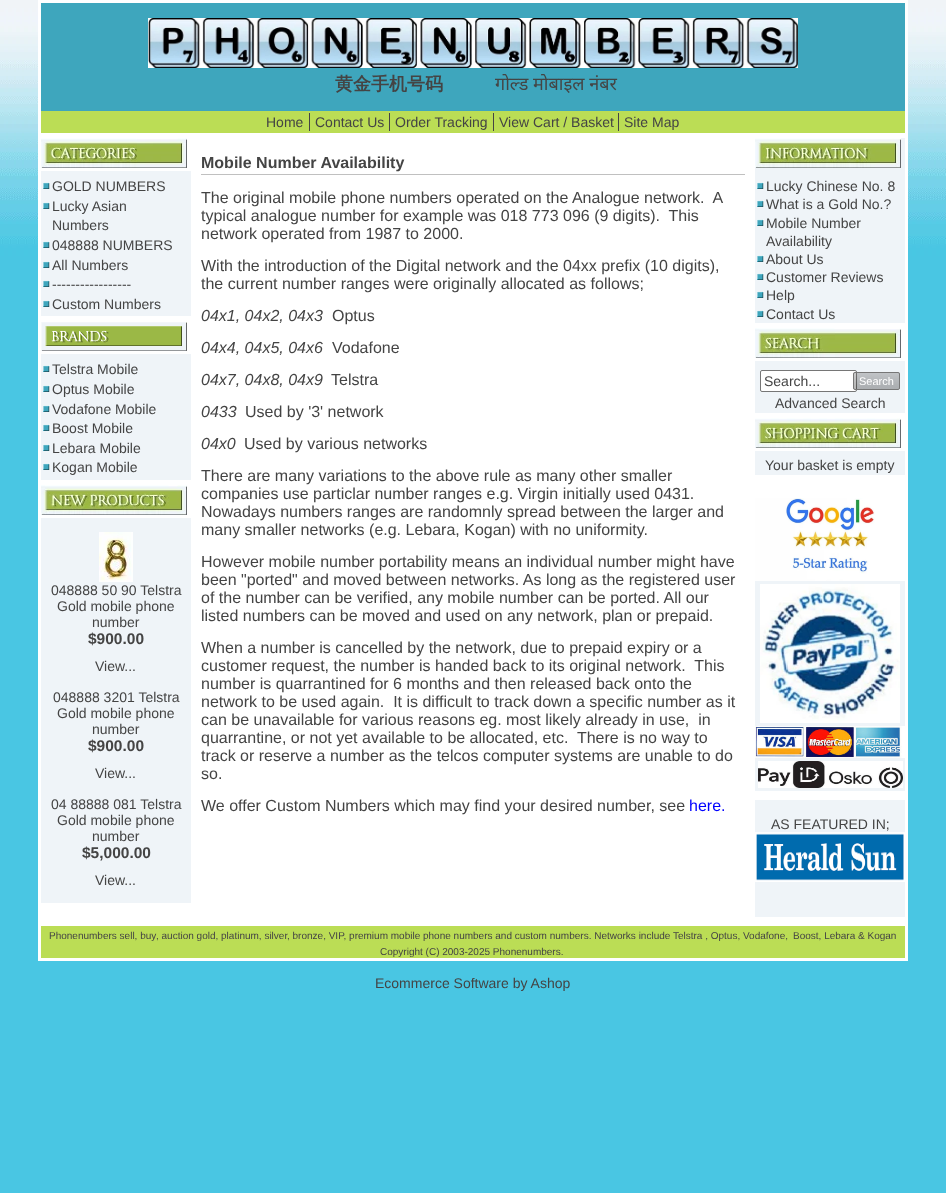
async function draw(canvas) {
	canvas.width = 946;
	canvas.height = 1193;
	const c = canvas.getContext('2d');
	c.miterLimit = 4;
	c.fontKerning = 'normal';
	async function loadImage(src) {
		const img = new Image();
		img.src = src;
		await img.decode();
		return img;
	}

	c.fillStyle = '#fff';
	c.fillRect(0, 0, 946, 1193);
	c.drawImage(await loadImage('img1.png'), 0, 0, 946, 1193);
	c.strokeStyle = '#fff';
	c.lineWidth = 3;
	c.strokeRect(39.5, 1.5, 867, 958);
	c.fillStyle = '#3ea6bd';
	c.fillRect(41, 3, 864, 108);
	c.drawImage(await loadImage('img2.png'), 148, 18, 650, 50);
	c.font = 'bold 18px WenQuanYi Zen Hei';
	c.fillStyle = '#444';
	c.fillText('黄金手机号码', 335, 90);
	c.font = '18px Noto Sans';
	c.fillText('गोल्ड मोबाइल नंबर', 495, 90);
	c.fillStyle = '#bd5';
	c.fillRect(41, 111, 864, 22);
	c.font = '14px Liberation Sans';
	c.fillStyle = '#444';
	c.fillText('Home', 266, 127);
	c.fillRect(309, 113, 1, 18);
	c.fillText('Contact Us', 315, 127);
	c.fillRect(389, 113, 1, 18);
	c.fillText('Order Tracking', 395, 127);
	c.fillRect(493, 113, 1, 18);
	c.fillText('View Cart / Basket', 499, 127);
	c.fillRect(618, 113, 1, 18);
	c.fillText('Site Map', 624, 127);
	c.fillStyle = '#fff';
	c.fillRect(41, 133, 864, 793);
	c.drawImage(await loadImage('img3.png'), 41, 138, 146, 30);
	c.fillStyle = '#eff4f8';
	c.fillRect(41, 171, 150, 145);
	c.drawImage(await loadImage('img4.png'), 43, 182, 7, 7);
	c.fillStyle = '#444';
	c.fillText('GOLD NUMBERS', 52, 191);
	c.drawImage(await loadImage('img4.png'), 43, 202, 7, 7);
	c.fillText('Lucky Asian', 52, 211);
	c.fillText('Numbers', 52, 230);
	c.drawImage(await loadImage('img4.png'), 43, 241, 7, 7);
	c.fillText('048888 NUMBERS', 52, 250);
	c.drawImage(await loadImage('img4.png'), 43, 261, 7, 7);
	c.fillText('All Numbers', 52, 270);
	c.drawImage(await loadImage('img4.png'), 43, 280, 7, 7);
	c.fillText('-----------------', 52, 289);
	c.drawImage(await loadImage('img4.png'), 43, 300, 7, 7);
	c.fillText('Custom Numbers', 52, 309);
	c.drawImage(await loadImage('img5.png'), 41, 322, 146, 29);
	c.fillStyle = '#eff4f8';
	c.fillRect(41, 354, 150, 126);
	c.drawImage(await loadImage('img4.png'), 43, 365, 7, 7);
	c.fillStyle = '#444';
	c.fillText('Telstra Mobile', 52, 374);
	c.drawImage(await loadImage('img4.png'), 43, 385, 7, 7);
	c.fillText('Optus Mobile', 52, 394);
	c.drawImage(await loadImage('img4.png'), 43, 405, 7, 7);
	c.fillText('Vodafone Mobile', 52, 414);
	c.drawImage(await loadImage('img4.png'), 43, 424, 7, 7);
	c.fillText('Boost Mobile', 52, 433);
	c.drawImage(await loadImage('img4.png'), 43, 444, 7, 7);
	c.fillText('Lebara Mobile', 52, 453);
	c.drawImage(await loadImage('img4.png'), 43, 463, 7, 7);
	c.fillText('Kogan Mobile', 52, 472);
	c.drawImage(await loadImage('img6.png'), 41, 485, 146, 30);
	c.fillStyle = '#eff4f8';
	c.fillRect(41, 518, 150, 385);
	c.drawImage(await loadImage('img7.png'), 99, 532, 34, 50);
	c.fillStyle = '#444';
	for (const [text, x, y] of [
		['048888 50 90 Telstra', 51, 595],
		['Gold mobile phone', 57, 611],
		['number', 92, 627],
	]) {
		c.fillText(text, x, y);
	}
	c.font = 'bold 15.5px Liberation Sans';
	c.fillText('$900.00', 88, 644);
	c.font = '14px Liberation Sans';
	for (const [text, x, y] of [
		['View...', 95, 671],
		['048888 3201 Telstra', 53, 702],
		['Gold mobile phone', 57, 718],
		['number', 92, 734],
	]) {
		c.fillText(text, x, y);
	}
	c.font = 'bold 15.5px Liberation Sans';
	c.fillText('$900.00', 88, 751);
	c.font = '14px Liberation Sans';
	for (const [text, x, y] of [
		['View...', 95, 778],
		['04 88888 081 Telstra', 51, 809],
		['Gold mobile phone', 57, 825],
		['number', 92, 841],
	]) {
		c.fillText(text, x, y);
	}
	c.font = 'bold 15.5px Liberation Sans';
	c.fillText('$5,000.00', 82, 858);
	c.font = '14px Liberation Sans';
	c.fillText('View...', 95, 885);
	c.fillStyle = '#c0c0c0';
	c.fillRect(201, 174, 544, 1);
	c.font = 'bold 16px Liberation Sans';
	c.fillStyle = '#444';
	c.fillText('Mobile Number Availability', 201, 168);
	c.font = '16px Liberation Sans';
	for (const [text, x, y] of [
		['The original mobile phone numbers operated on the Analogue network.  A', 201, 203],
		['typical analogue number for example was 018 773 096 (9 digits).  This', 201, 221],
		['network operated from 1987 to 2000.', 201, 239],
		['With the introduction of the Digital network and the 04xx prefix (10 digits),', 201, 271],
		['the current number ranges were originally allocated as follows;', 201, 289],
	]) {
		c.fillText(text, x, y);
	}
	c.font = 'italic 16px Liberation Sans';
	c.fillText('04x1, 04x2, 04x3', 201, 321);
	c.font = '16px Liberation Sans';
	c.fillText('Optus', 332, 321);
	c.font = 'italic 16px Liberation Sans';
	c.fillText('04x4, 04x5, 04x6', 201, 353);
	c.font = '16px Liberation Sans';
	c.fillText('Vodafone', 332, 353);
	c.font = 'italic 16px Liberation Sans';
	c.fillText('04x7, 04x8, 04x9', 201, 385);
	c.font = '16px Liberation Sans';
	c.fillText('Telstra', 331, 385);
	c.font = 'italic 16px Liberation Sans';
	c.fillText('0433', 201, 417);
	c.font = '16px Liberation Sans';
	c.fillText('Used by \'3\' network', 245, 417);
	c.font = 'italic 16px Liberation Sans';
	c.fillText('04x0', 201, 449);
	c.font = '16px Liberation Sans';
	for (const [text, x, y] of [
		['Used by various networks', 244, 449],
		['There are many variations to the above rule as many other smaller', 201, 481],
		['companies use particlar number ranges e.g. Virgin initially used 0431.', 201, 499],
		['Nowadays numbers ranges are randomnly spread between the larger and', 201, 517],
		['many smaller networks (e.g. Lebara, Kogan) with no uniformity.', 201, 535],
		['However mobile number portability means an individual number might have', 201, 567],
		['been "ported" and moved between networks. As long as the registered user', 201, 585],
		['of the number can be verified, any mobile number can be ported. All our', 201, 603],
		['listed numbers can be moved and used on any network, plan or prepaid.', 201, 621],
		['When a number is cancelled by the network, due to prepaid expiry or a', 201, 653],
		['customer request, the number is handed back to its original network.  This', 201, 671],
		['number is quarrantined for 6 months and then released back onto the', 201, 689],
		['network to be used again.  It is difficult to track down a specific number as it', 201, 707],
		['can be unavailable for various reasons eg. most likely already in use,  in', 201, 725],
		['quarrantine, or not yet available to be allocated, etc.  There is no way to', 201, 743],
		['track or reserve a number as the telcos computer systems are unable to do', 201, 761],
		['so.', 201, 779],
		['We offer Custom Numbers which may find your desired number, see', 201, 811],
	]) {
		c.fillText(text, x, y);
	}
	c.fillStyle = '#00f';
	c.fillText('here.', 689, 811);
	c.fillStyle = '#eff4f8';
	c.fillRect(755, 138, 150, 185);
	c.drawImage(await loadImage('img8.png'), 755, 138, 146, 30);
	c.drawImage(await loadImage('img4.png'), 757, 182, 7, 7);
	c.font = '14px Liberation Sans';
	c.fillStyle = '#444';
	c.fillText('Lucky Chinese No. 8', 766, 191);
	c.drawImage(await loadImage('img4.png'), 757, 200, 7, 7);
	c.fillText('What is a Gold No.?', 766, 209);
	c.drawImage(await loadImage('img4.png'), 757, 219, 7, 7);
	c.fillText('Mobile Number', 766, 228);
	c.fillText('Availability', 766, 246);
	c.drawImage(await loadImage('img4.png'), 757, 255, 7, 7);
	c.fillText('About Us', 766, 264);
	c.drawImage(await loadImage('img4.png'), 757, 273, 7, 7);
	c.fillText('Customer Reviews', 766, 282);
	c.drawImage(await loadImage('img4.png'), 757, 291, 7, 7);
	c.fillText('Help', 766, 300);
	c.drawImage(await loadImage('img4.png'), 757, 310, 7, 7);
	c.fillText('Contact Us', 766, 319);
	c.drawImage(await loadImage('img9.png'), 755, 328, 146, 30);
	c.fillStyle = '#eff4f8';
	c.fillRect(755, 361, 150, 52);
	c.fillStyle = '#fff';
	c.beginPath();
	c.roundRect(760.5, 370.5, 96, 21, 1.5);
	c.fill();
	c.strokeStyle = '#767676';
	c.lineWidth = 1;
	c.stroke();
	c.fillStyle = '#444';
	c.fillText('Search...', 764, 386);
	c.drawImage(await loadImage('img10.png'), 853, 372, 47, 18);
	c.beginPath();
	c.roundRect(853.5, 372.5, 46, 17, 1.5);
	c.strokeStyle = '#777';
	c.stroke();
	c.font = '11px Liberation Sans';
	c.fillStyle = '#fff';
	c.fillText('Search', 859, 385);
	c.font = '14px Liberation Sans';
	c.fillStyle = '#444';
	c.fillText('Advanced Search', 775, 408);
	c.drawImage(await loadImage('img11.png'), 755, 418, 146, 30);
	c.fillStyle = '#eff4f8';
	c.fillRect(755, 451, 150, 24);
	c.fillStyle = '#444';
	c.fillText('Your basket is empty', 765, 470);
	c.fillStyle = '#eff4f8';
	c.fillRect(755, 581, 150, 210);
	c.drawImage(await loadImage('img12.png'), 755, 498, 150, 83);
	c.drawImage(await loadImage('img13.png'), 760, 584, 140, 139);
	c.drawImage(await loadImage('img14.png'), 755, 726, 150, 32);
	c.drawImage(await loadImage('img15.png'), 758, 761, 145, 27);
	c.fillRect(755, 800, 150, 117);
	c.fillStyle = '#444';
	c.fillText('AS FEATURED IN;', 771, 829);
	c.drawImage(await loadImage('img16.png'), 755, 832, 150, 50);
	c.fillStyle = '#bd5';
	c.fillRect(41, 926, 864, 32);
	c.font = '10px Liberation Sans';
	c.fillStyle = '#444';
	for (const [text, x, y] of [
		['Phonenumbers sell, buy', 49, 939],
		[', auction gold, platinum, silver', 156, 939],
		[', bronze, VIP, premium mobile phone numbers and custom numbers. Networks include Telstra , Optus, Vodafone,', 287, 939],
		['Boost, Lebara & Kogan', 793, 939],
		['Copyright (C) 2003-2025 Phonenumbers.', 380, 955],
	]) {
		c.fillText(text, x, y);
	}
	c.font = '14px Liberation Sans';
	c.fillText('Ecommerce Software by Ashop', 375, 988);
}

draw(document.querySelector('canvas'));
